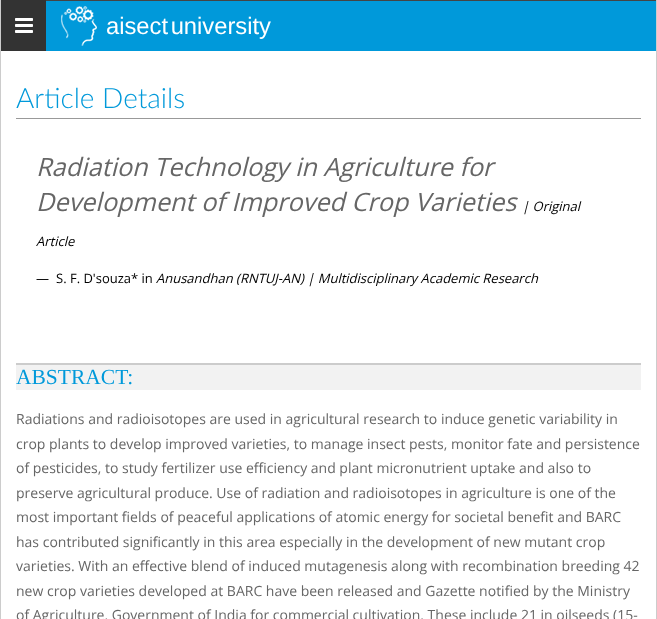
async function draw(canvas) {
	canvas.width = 657;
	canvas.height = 619;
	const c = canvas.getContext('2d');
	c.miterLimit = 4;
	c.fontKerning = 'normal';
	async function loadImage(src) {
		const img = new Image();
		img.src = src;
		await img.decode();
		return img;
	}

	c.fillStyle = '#fff';
	c.fillRect(0, 0, 657, 619);
	for (const [x, y, w, h, color] of [
		[656, 0, 1, 619, '#ccc'],
		[0, 0, 1, 619, '#ccc'],
		[46, 1, 610, 50, '#0099da'],
		[46, 0, 610, 1, '#444'],
		[1, 0, 45, 51, '#333'],
	]) {
		c.fillStyle = color;
		c.fillRect(x, y, w, h);
	}
	c.drawImage(await loadImage('img1.png'), 15, 18, 18, 15);
	c.drawImage(await loadImage('img2.png'), 61, 6, 36, 40);
	c.wordSpacing = '-4px';
	c.font = '23.75px Liberation Sans';
	c.fillStyle = '#fff';
	c.fillText('aisect university', 106, 34);
	c.fillStyle = '#999';
	c.fillRect(16, 118, 625, 1);
	c.wordSpacing = '0px';
	c.font = '300 28px Lato';
	c.fillStyle = '#0099da';
	c.fillText('Article Details', 16, 108);
	c.font = 'italic 25.25px Open Sans';
	c.fillStyle = '#666';
	c.fillText('Radiation Technology in Agriculture for', 36, 176);
	c.fillText('Development of Improved Crop Varieties', 36, 211);
	c.font = 'italic 13px Open Sans';
	c.fillStyle = '#000';
	c.fillText('| Original', 522, 211);
	c.fillText('Article', 36, 246);
	c.font = '13px Open Sans';
	c.fillText('—', 36, 283);
	c.fillText('S. F. D\'souza* in', 56, 283);
	c.font = 'italic 13px Open Sans';
	c.fillText('Anusandhan (RNTUJ-AN) | Multidisciplinary Academic Research', 156, 283);
	c.fillStyle = '#f2f2f2';
	c.fillRect(16, 365, 625, 25);
	c.fillStyle = '#ccc';
	c.fillRect(16, 363, 625, 2);
	c.font = '21.5px Liberation Serif';
	c.fillStyle = '#0099da';
	c.fillText('ABSTRACT:', 16, 384);
	c.font = '14px Open Sans';
	c.fillStyle = '#666';
	for (const [text, x, y] of [
		['Radiations and radioisotopes are used in agricultural research to induce genetic variability in', 16, 424],
		['crop plants to develop improved varieties, to manage insect pests, monitor fate and persistence', 16, 449],
		['of pesticides, to study fertilizer use efficiency and plant micronutrient uptake and also to', 16, 473],
		['preserve agricultural produce. Use of radiation and radioisotopes in agriculture is one of the', 16, 498],
		['most important fields of peaceful applications of atomic energy for societal benefit and BARC', 16, 522],
		['has contributed significantly in this area especially in the development of new mutant crop', 16, 547],
		['varieties. With an effective blend of induced mutagenesis along with recombination breeding 42', 16, 571],
		['new crop varieties developed at BARC have been released and Gazette notified by the Ministry', 16, 596],
		['of Agriculture, Government of India for commercial cultivation. These include 21 in oilseeds (15-', 16, 620],
	]) {
		c.fillText(text, x, y);
	}
}

draw(document.querySelector('canvas'));
